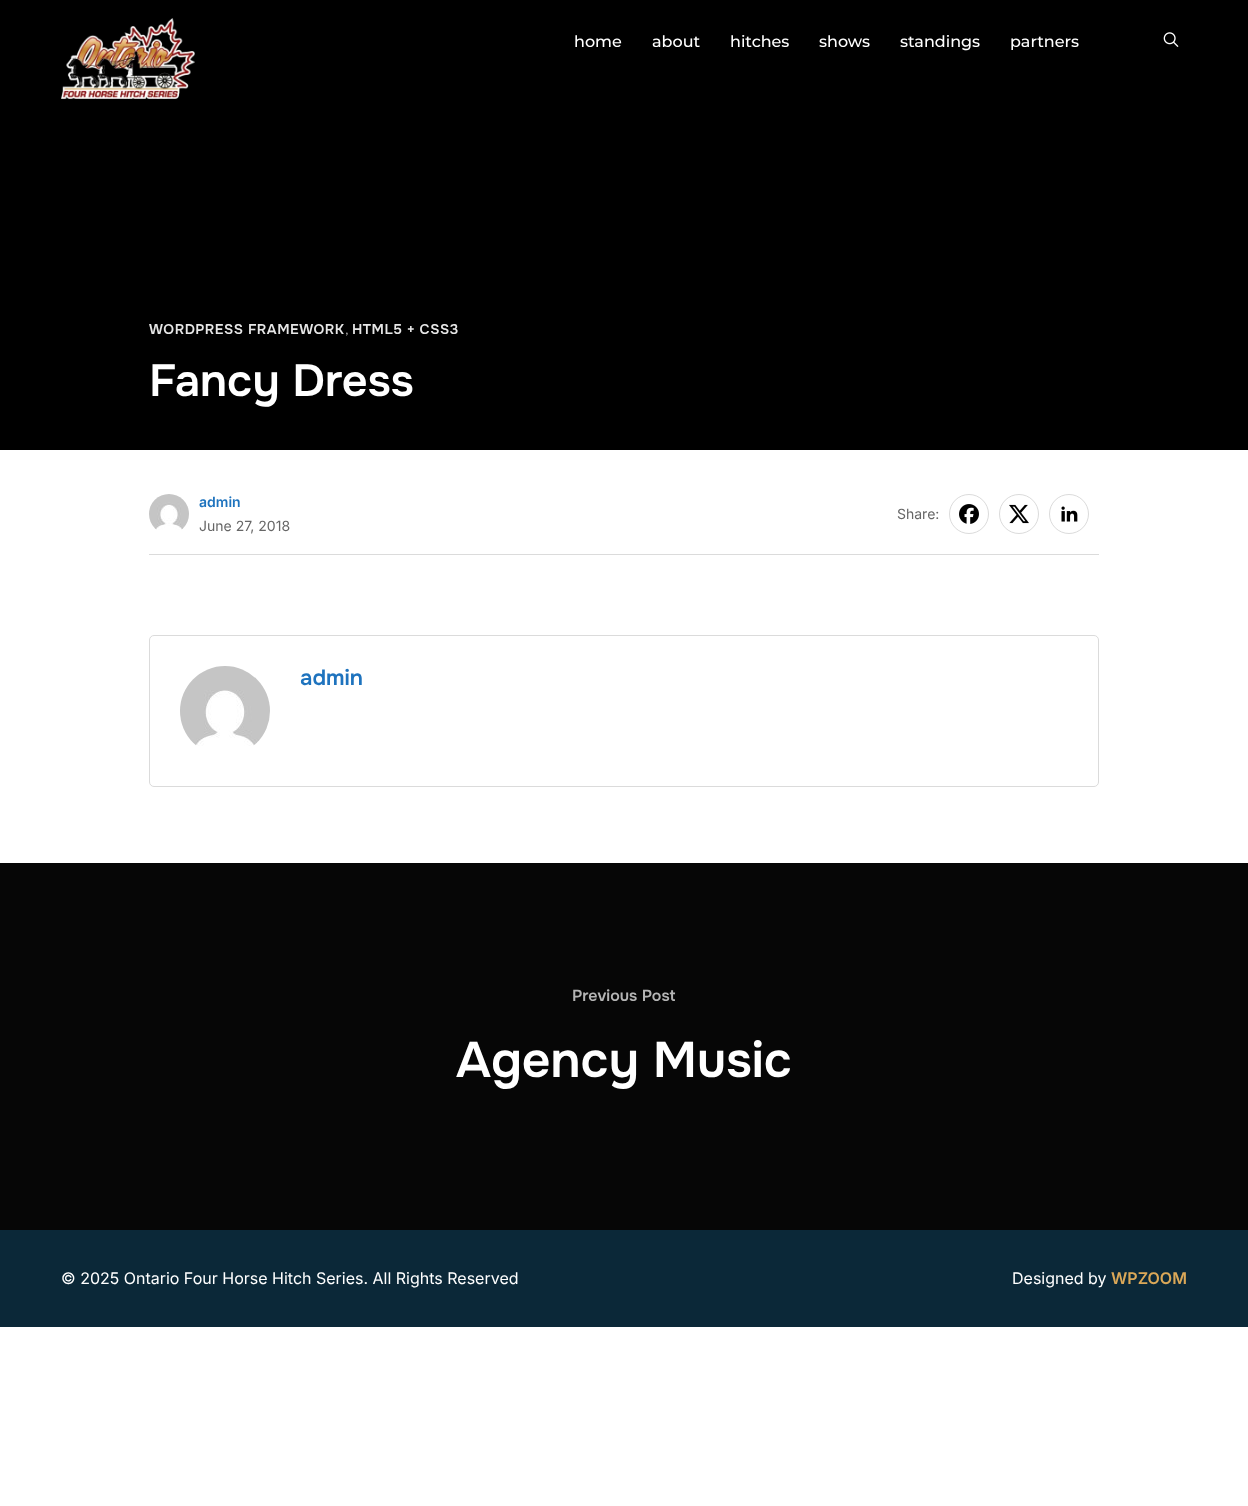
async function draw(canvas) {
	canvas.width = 1248;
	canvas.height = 1506;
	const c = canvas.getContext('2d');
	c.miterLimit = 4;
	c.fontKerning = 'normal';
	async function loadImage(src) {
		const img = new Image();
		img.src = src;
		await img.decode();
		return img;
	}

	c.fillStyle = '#fff';
	c.fillRect(0, 0, 1248, 1506);
	c.fillStyle = '#000';
	c.fillRect(0, 0, 1248, 450);
	c.drawImage(await loadImage('img1.png'), 61, 18, 134, 81);
	c.font = '500 16px Montserrat';
	c.fillStyle = '#fff';
	for (const [text, x, y] of [
		['home', 574, 47],
		['about', 652, 47],
		['hitches', 730, 47],
		['shows', 819, 47],
		['standings', 900, 47],
		['partners', 1010, 47],
	]) {
		c.fillText(text, x, y);
	}
	c.drawImage(await loadImage('img2.png'), 1163, 32, 16, 15);
	c.letterSpacing = '0.5px';
	c.font = '600 14px Onest';
	c.fillStyle = '#e6e6e6';
	c.fillText('WORDPRESS FRAMEWORK', 149, 334);
	c.letterSpacing = '0px';
	c.font = '14px Onest';
	c.fillStyle = '#a1a1a1';
	c.fillText(',', 345, 334);
	c.letterSpacing = '0.5px';
	c.font = '600 14px Onest';
	c.fillStyle = '#e6e6e6';
	c.fillText('HTML5 + CSS3', 352, 334);
	c.letterSpacing = '0px';
	c.font = '600 45px Onest';
	c.fillStyle = '#fff';
	c.fillText('Fancy Dress', 149, 396);
	c.fillStyle = '#dbdbdb';
	c.fillRect(149, 554, 950, 1);
	c.drawImage(await loadImage('img3.png'), 149, 494, 40, 36);
	c.font = '600 14px Inter';
	c.fillStyle = '#1e73be';
	c.fillText('admin', 199, 507);
	c.font = '14px Inter';
	c.fillStyle = '#666';
	c.fillText('June 27, 2018', 199, 531);
	c.fillText('Share:', 897, 519);
	c.beginPath();
	c.arc(969, 514, 19.5, 0, 2 * Math.PI);
	c.strokeStyle = '#dbdbdb';
	c.stroke();
	c.drawImage(await loadImage('img4.png'), 959, 504, 20, 20);
	c.beginPath();
	c.arc(1019, 514, 19.5, 0, 2 * Math.PI);
	c.stroke();
	c.drawImage(await loadImage('img5.png'), 1009, 504, 20, 20);
	c.beginPath();
	c.arc(1069, 514, 19.5, 0, 2 * Math.PI);
	c.stroke();
	c.drawImage(await loadImage('img6.png'), 1061, 506, 17, 16);
	c.beginPath();
	c.roundRect(149.5, 635.5, 949, 151, 4.5);
	c.stroke();
	c.drawImage(await loadImage('img7.png'), 180, 666, 90, 80);
	c.font = '600 22px Onest';
	c.fillStyle = '#1e73be';
	c.fillText('admin', 300, 685);
	c.fillStyle = '#060606';
	c.fillRect(0, 863, 1248, 367);
	c.font = '600 16px Onest';
	c.fillStyle = '#b4b4b4';
	c.fillText('Previous Post', 572, 1001);
	c.font = '600 50px Onest';
	c.fillStyle = '#fff';
	c.fillText('Agency Music', 456, 1077);
	c.fillStyle = '#0b2838';
	c.fillRect(0, 1230, 1248, 97);
	c.font = '16px Inter';
	c.fillStyle = '#fff';
	c.fillText('© 2025 Ontario Four Horse Hitch Series. All Rights Reserved', 61, 1284);
	c.fillText('Designed by', 1012, 1284);
	c.font = '600 16px Inter';
	c.fillStyle = '#dba858';
	c.fillText('WPZOOM', 1111, 1284);
}

draw(document.querySelector('canvas'));
